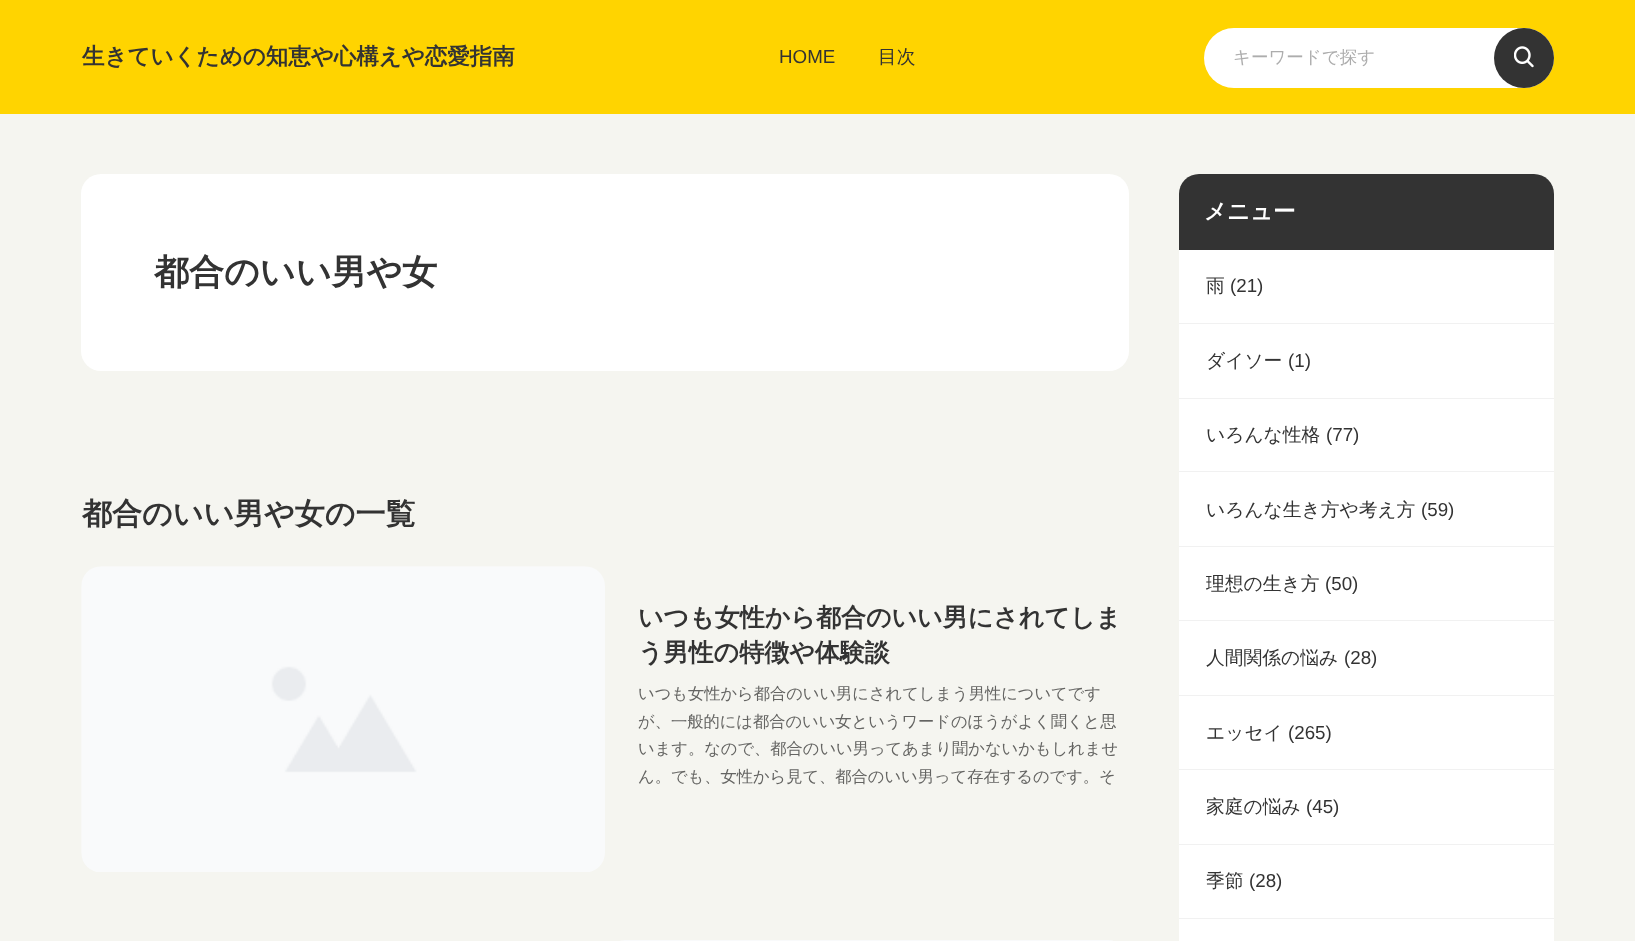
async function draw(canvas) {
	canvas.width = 1635;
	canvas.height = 941;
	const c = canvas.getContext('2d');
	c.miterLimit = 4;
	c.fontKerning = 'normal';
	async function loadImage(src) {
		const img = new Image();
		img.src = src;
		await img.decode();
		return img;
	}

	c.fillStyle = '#f5f5f0';
	c.fillRect(0, 0, 1635, 941);
	c.fillStyle = '#ffd400';
	c.fillRect(0, 0, 1635, 114);
	c.font = 'bold 22.5px WenQuanYi Zen Hei';
	c.fillStyle = '#333';
	c.fillText('生きていくための知恵や心構えや恋愛指南', 82, 64);
	c.font = '18.75px Liberation Sans';
	c.fillText('HOME', 779, 63);
	c.font = '500 18.75px WenQuanYi Zen Hei';
	c.fillText('目次', 878, 63);
	c.fillStyle = '#fff';
	c.beginPath();
	c.roundRect(1204, 28, 350, 60, 30);
	c.fill();
	c.font = '500 17.5px WenQuanYi Zen Hei';
	c.fillStyle = '#adadad';
	c.fillText('キーワードで探す', 1233, 63);
	c.fillStyle = '#333';
	c.beginPath();
	c.arc(1524, 58, 30, 0, 2 * Math.PI);
	c.fill();
	c.drawImage(await loadImage('img1.png'), 1514, 46, 20, 22);
	c.fillStyle = '#fff';
	c.beginPath();
	c.roundRect(81, 174, 1048, 197, 20);
	c.fill();
	c.font = 'bold 35px WenQuanYi Zen Hei';
	c.fillStyle = '#333';
	c.fillText('都合のいい男や女', 154, 284);
	c.beginPath();
	c.roundRect(1179, 174, 375, 76, [20, 20, 0, 0]);
	c.fill();
	c.font = 'bold 22.5px WenQuanYi Zen Hei';
	c.fillStyle = '#fff';
	c.fillText('メニュー', 1204, 219);
	c.fillRect(1179, 250, 375, 691);
	c.fillStyle = '#f1f1f1';
	c.fillRect(1179, 323, 375, 1);
	c.font = '500 18.75px WenQuanYi Zen Hei';
	c.fillStyle = '#333';
	c.fillText('雨', 1206, 292);
	c.font = '18.75px Liberation Sans';
	c.fillText('(21)', 1230, 292);
	c.fillStyle = '#f1f1f1';
	c.fillRect(1179, 398, 375, 1);
	c.font = '500 18.75px WenQuanYi Zen Hei';
	c.fillStyle = '#333';
	c.fillText('ダイソー', 1206, 367);
	c.font = '18.75px Liberation Sans';
	c.fillText('(1)', 1288, 367);
	c.fillStyle = '#f1f1f1';
	c.fillRect(1179, 471, 375, 1);
	c.font = '500 18.75px WenQuanYi Zen Hei';
	c.fillStyle = '#333';
	c.fillText('いろんな性格', 1206, 441);
	c.font = '18.75px Liberation Sans';
	c.fillText('(77)', 1326, 441);
	c.fillStyle = '#f1f1f1';
	c.fillRect(1179, 546, 375, 1);
	c.font = '500 18.75px WenQuanYi Zen Hei';
	c.fillStyle = '#333';
	c.fillText('いろんな生き方や考え方', 1206, 516);
	c.font = '18.75px Liberation Sans';
	c.fillText('(59)', 1421, 516);
	c.fillStyle = '#f1f1f1';
	c.fillRect(1179, 620, 375, 1);
	c.font = '500 18.75px WenQuanYi Zen Hei';
	c.fillStyle = '#333';
	c.fillText('理想の生き方', 1206, 590);
	c.font = '18.75px Liberation Sans';
	c.fillText('(50)', 1325, 590);
	c.fillStyle = '#f1f1f1';
	c.fillRect(1179, 695, 375, 1);
	c.font = '500 18.75px WenQuanYi Zen Hei';
	c.fillStyle = '#333';
	c.fillText('人間関係の悩み', 1206, 664);
	c.font = '18.75px Liberation Sans';
	c.fillText('(28)', 1344, 664);
	c.fillStyle = '#f1f1f1';
	c.fillRect(1179, 769, 375, 1);
	c.font = '500 18.75px WenQuanYi Zen Hei';
	c.fillStyle = '#333';
	c.fillText('エッセイ', 1206, 739);
	c.font = '18.75px Liberation Sans';
	c.fillText('(265)', 1288, 739);
	c.fillStyle = '#f1f1f1';
	c.fillRect(1179, 844, 375, 1);
	c.font = '500 18.75px WenQuanYi Zen Hei';
	c.fillStyle = '#333';
	c.fillText('家庭の悩み', 1206, 813);
	c.font = '18.75px Liberation Sans';
	c.fillText('(45)', 1306, 813);
	c.fillStyle = '#f1f1f1';
	c.fillRect(1179, 918, 375, 1);
	c.font = '500 18.75px WenQuanYi Zen Hei';
	c.fillStyle = '#333';
	c.fillText('季節', 1206, 887);
	c.font = '18.75px Liberation Sans';
	c.fillText('(28)', 1249, 887);
	c.font = 'bold 30px WenQuanYi Zen Hei';
	c.fillText('都合のいい男や女の一覧', 82, 524);
	c.drawImage(await loadImage('img2.png'), 81, 566, 524, 306);
	c.font = 'bold 25px WenQuanYi Zen Hei';
	c.fillText('いつも女性から都合のいい男にされてしま', 638, 626);
	c.fillText('う男性の特徴や体験談', 638, 661);
	c.font = '500 16.25px WenQuanYi Zen Hei';
	c.fillStyle = '#646462';
	for (const [text, x, y] of [
		['いつも女性から都合のいい男にされてしまう男性についてです', 638, 699],
		['が、一般的には都合のいい女というワードのほうがよく聞くと思', 638, 727],
		['います。なので、都合のいい男ってあまり聞かないかもしれませ', 638, 754],
		['ん。でも、女性から見て、都合のいい男って存在するのです。そ', 638, 782],
	]) {
		c.fillText(text, x, y);
	}
	c.drawImage(await loadImage('img3.png'), 620, 940, 493, 1);
}

draw(document.querySelector('canvas'));
